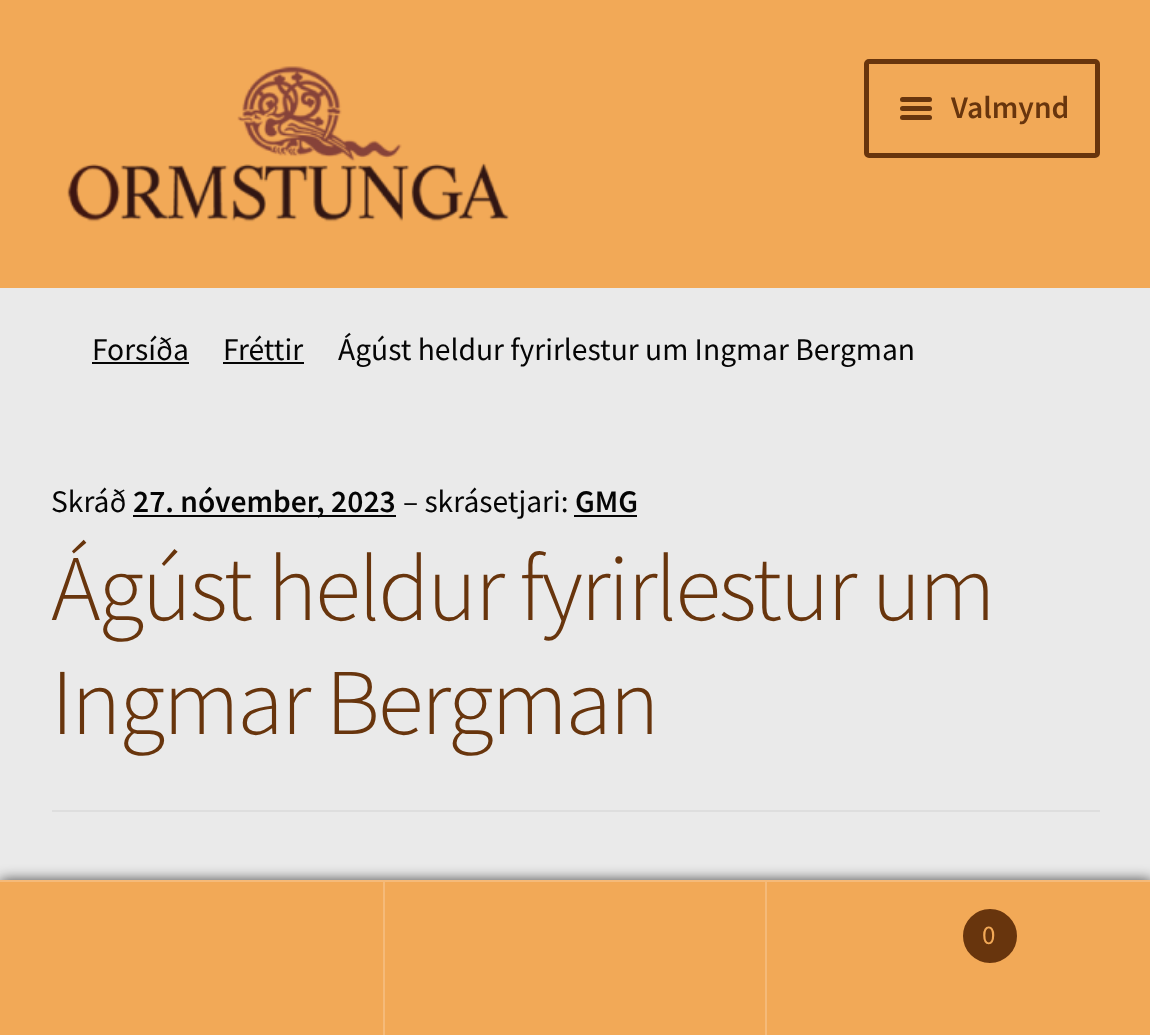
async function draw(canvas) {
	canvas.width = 1150;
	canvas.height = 1035;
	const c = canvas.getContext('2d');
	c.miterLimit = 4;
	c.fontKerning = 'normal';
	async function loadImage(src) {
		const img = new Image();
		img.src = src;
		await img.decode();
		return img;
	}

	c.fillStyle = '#eaeaea';
	c.fillRect(0, 0, 1150, 1035);
	c.fillStyle = '#f2a957';
	c.fillRect(0, 0, 1150, 288);
	c.drawImage(await loadImage('img1.png'), 67, 66, 442, 156);
	c.beginPath();
	c.roundRect(866.5, 61.5, 231, 94, 2.5);
	c.strokeStyle = '#68350d';
	c.lineWidth = 5;
	c.stroke();
	c.fillStyle = '#68350d';
	c.beginPath();
	c.roundRect(900, 97, 32, 5, 2.5);
	c.fill();
	c.beginPath();
	c.roundRect(900, 106, 32, 5, 2.5);
	c.fill();
	c.font = '600 31.5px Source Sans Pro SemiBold';
	c.fillText('Valmynd', 951, 118);
	c.beginPath();
	c.roundRect(900, 115, 32, 5, 2.5);
	c.fill();
	c.font = '31.5px Source Sans Pro';
	c.fillStyle = '#050505';
	c.fillText('Forsíða', 92, 360);
	c.fillRect(92, 362, 97, 2);
	c.fillText('Fréttir', 223, 360);
	c.fillRect(223, 362, 81, 2);
	c.fillText('Ágúst heldur fyrirlestur um Ingmar Bergman', 338, 360);
	c.fillStyle = '#dedede';
	c.fillRect(52, 810, 1048, 2);
	c.fillStyle = '#050505';
	c.fillText('Skráð', 51, 512);
	c.fillRect(133, 515, 263, 2);
	c.font = '600 31.5px Source Sans Pro SemiBold';
	c.fillText('27. nóvember, 2023', 133, 512);
	c.font = '31.5px Source Sans Pro';
	c.fillText('– skrásetjari:', 403, 512);
	c.font = '600 31.5px Source Sans Pro SemiBold';
	c.fillText('GMG', 575, 512);
	c.fillRect(574, 515, 63, 2);
	c.letterSpacing = '-2.25px';
	c.font = '300 94.25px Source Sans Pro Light';
	c.fillStyle = '#68350d';
	c.fillText('Ágúst heldur fyrirlestur um', 51, 620);
	c.fillText('Ingmar Bergman', 51, 734);
	c.fillStyle = '#000000b3';
	c.filter = 'blur(7px)';
	c.beginPath();
	c.rect(0, 880, 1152, 155);
	c.fill();
	c.filter = 'none';
	for (const [x, y, w, h, color] of [
		[0, 880, 1150, 2, '#f5ba79'],
		[0, 882, 383, 153, '#f2a957'],
		[383, 882, 2, 153, '#f5ba79'],
		[385, 882, 380, 153, '#f2a957'],
		[765, 882, 2, 153, '#f5ba79'],
		[767, 882, 383, 153, '#f2a957'],
	]) {
		c.fillStyle = color;
		c.fillRect(x, y, w, h);
	}
	c.fillStyle = '#68350d';
	c.beginPath();
	c.arc(990, 936, 28, 0, 2 * Math.PI);
	c.fill();
	c.strokeStyle = '#f2a957';
	c.lineWidth = 2;
	c.stroke();
	c.letterSpacing = '0px';
	c.font = '27px Source Sans Pro';
	c.fillStyle = '#f2a957';
	c.fillText('0', 982, 944);
}

draw(document.querySelector('canvas'));
